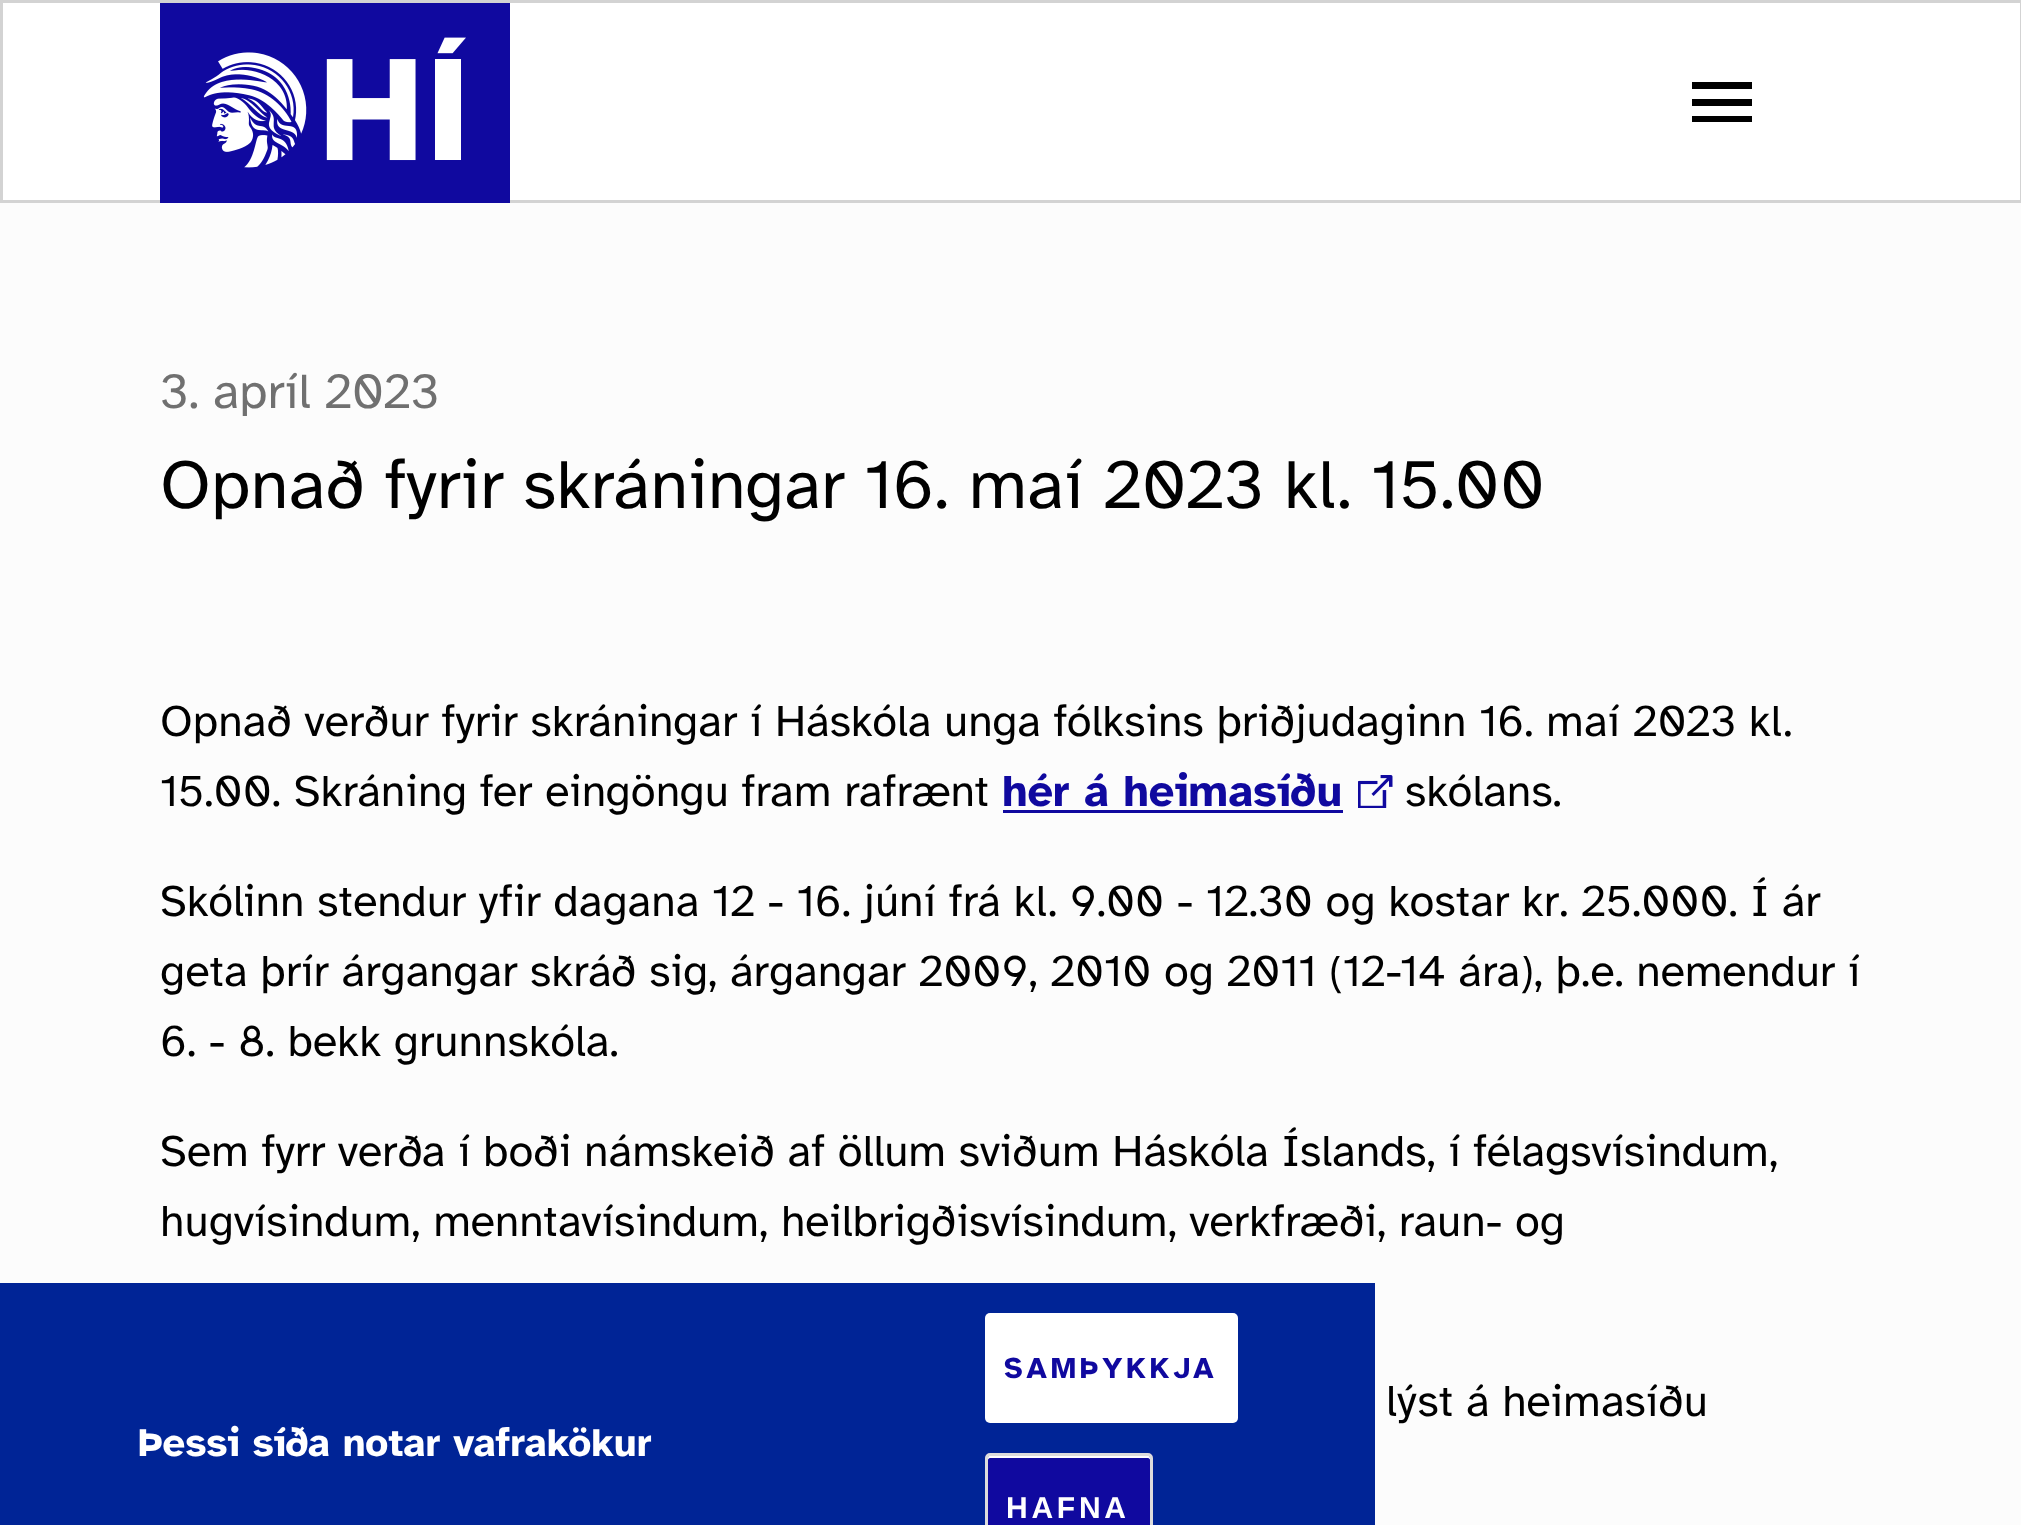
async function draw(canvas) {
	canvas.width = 2021;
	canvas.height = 1525;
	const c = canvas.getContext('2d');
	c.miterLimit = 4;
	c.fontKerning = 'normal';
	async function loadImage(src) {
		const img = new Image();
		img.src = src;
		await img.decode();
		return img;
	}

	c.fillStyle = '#fcfcfc';
	c.fillRect(0, 0, 2021, 1525);
	for (const [x, y, w, h, color] of [
		[0, 0, 2021, 3, '#d3d3d3'],
		[3, 3, 2017, 197, '#fff'],
		[0, 200, 160, 3, '#d3d3d3'],
		[0, 3, 3, 200, '#d3d3d3'],
		[160, 3, 350, 200, '#10099f'],
	]) {
		c.fillStyle = color;
		c.fillRect(x, y, w, h);
	}
	c.drawImage(await loadImage('img1.png'), 203, 37, 263, 131);
	c.fillStyle = '#000';
	c.beginPath();
	c.moveTo(1692, 122);
	c.lineTo(1692, 116);
	c.lineTo(1752, 116);
	c.lineTo(1752, 122);
	c.closePath();
	c.moveTo(1692, 106);
	c.lineTo(1692, 99);
	c.lineTo(1752, 99);
	c.lineTo(1752, 106);
	c.closePath();
	c.moveTo(1692, 89);
	c.lineTo(1692, 82);
	c.lineTo(1752, 82);
	c.lineTo(1752, 89);
	c.closePath();
	c.fill('evenodd');
	for (const [x, y, w, h, color] of [
		[2020, 3, 1, 200, '#d3d3d3'],
		[1783, 200, 238, 3, '#d3d3d3'],
		[510, 200, 1273, 3, '#d3d3d3'],
	]) {
		c.fillStyle = color;
		c.fillRect(x, y, w, h);
	}
	c.font = '50px Atkinson Hyperlegible';
	c.fillStyle = '#707070';
	c.fillText('3. apríl 2023', 160, 408);
	c.font = '70px Atkinson Hyperlegible';
	c.fillStyle = '#000';
	c.fillText('Opnað fyrir skráningar 16. maí 2023 kl. 15.00', 160, 508);
	c.font = '45px Atkinson Hyperlegible';
	c.fillText('Opnað verður fyrir skráningar í Háskóla unga fólksins þriðjudaginn 16. maí 2023 kl.', 160, 736);
	c.fillText('15.00. Skráning fer eingöngu fram rafrænt', 160, 806);
	c.font = 'bold 45px Atkinson Hyperlegible';
	c.fillStyle = '#10099f';
	c.fillText('hér á heimasíðu', 1002, 806);
	c.fillRect(1003, 810, 340, 3);
	c.drawImage(await loadImage('img2.png'), 1358, 775, 35, 33);
	c.font = '45px Atkinson Hyperlegible';
	c.fillStyle = '#000';
	for (const [text, x, y] of [
		['skólans.', 1405, 806],
		['Skólinn stendur yfir dagana 12 - 16. júní frá kl. 9.00 - 12.30 og kostar kr. 25.000. Í ár', 160, 916],
		['geta þrír árgangar skráð sig, árgangar 2009, 2010 og 2011 (12-14 ára), þ.e. nemendur í', 160, 986],
		['6. - 8. bekk grunnskóla.', 160, 1056],
		['Sem fyrr verða í boði námskeið af öllum sviðum Háskóla Íslands, í félagsvísindum,', 160, 1166],
		['hugvísindum, menntavísindum, heilbrigðisvísindum, verkfræði, raun- og', 160, 1236],
		['lýst á heimasíðu', 1386, 1416],
	]) {
		c.fillText(text, x, y);
	}
	c.fillStyle = '#002496';
	c.fillRect(0, 1283, 1375, 242);
	c.font = 'bold 40px Atkinson Hyperlegible';
	c.fillStyle = '#fff';
	c.fillText('Þessi síða notar vafrakökur', 138, 1456);
	c.beginPath();
	c.roundRect(985, 1313, 253, 110, 5);
	c.fill();
	c.letterSpacing = '3.75px';
	c.font = 'bold 30px Atkinson Hyperlegible';
	c.fillStyle = '#10099f';
	c.fillText('SAMÞYKKJA', 1004, 1378);
	c.beginPath();
	c.roundRect(985, 1453, 168, 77, 5);
	c.fill();
	c.fillStyle = '#fff';
	c.beginPath();
	c.moveTo(990, 1458);
	c.lineTo(1148, 1458);
	c.bezierCurveTo(1149, 1458, 1150, 1459, 1150, 1460);
	c.lineTo(1150, 1458);
	c.bezierCurveTo(1150, 1456, 1149, 1455, 1148, 1455);
	c.lineTo(990, 1455);
	c.bezierCurveTo(989, 1455, 988, 1456, 988, 1458);
	c.lineTo(988, 1460);
	c.bezierCurveTo(988, 1459, 989, 1458, 990, 1458);
	c.closePath();
	c.fill();
	c.beginPath();
	c.roundRect(986.5, 1454.5, 165, 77, 3.5);
	c.strokeStyle = '#dcdcdc';
	c.lineWidth = 3;
	c.stroke();
	c.font = 'bold 30px Liberation Sans';
	c.fillText('HAFNA', 1006, 1518);
}

draw(document.querySelector('canvas'));
